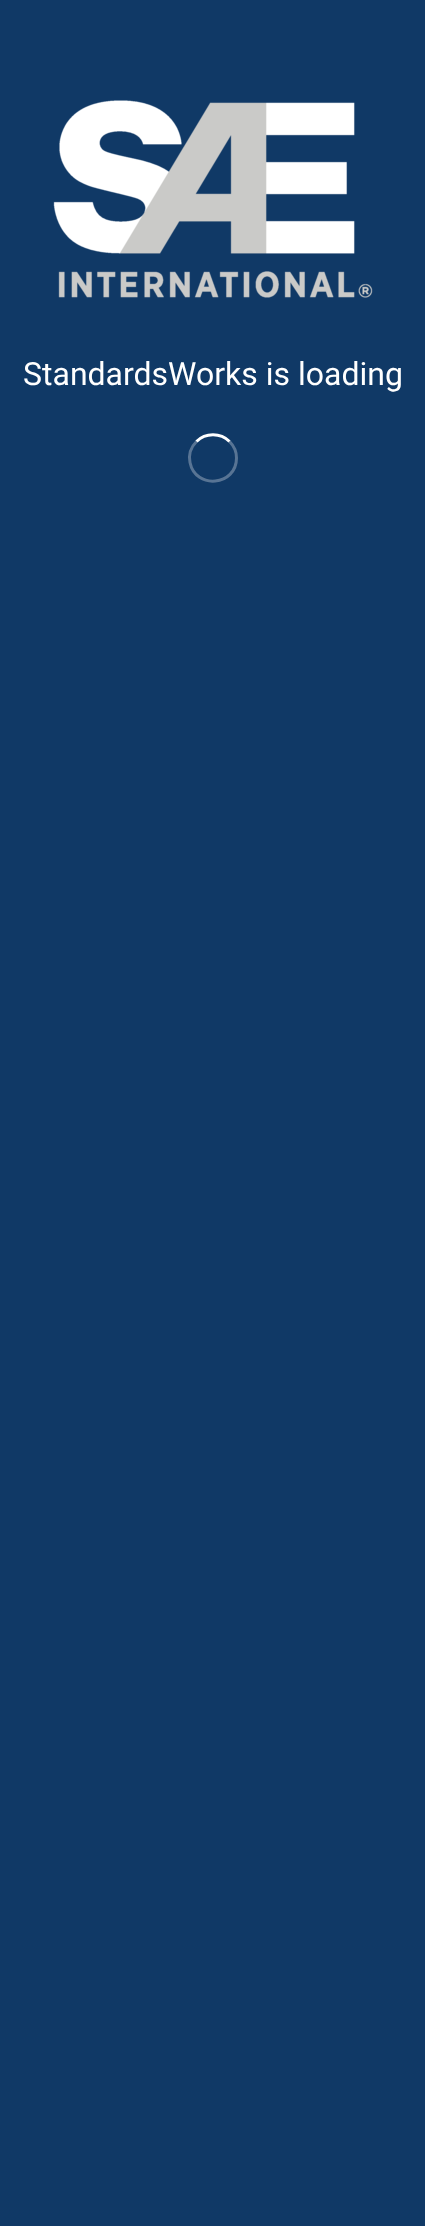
async function draw(canvas) {
	canvas.width = 425;
	canvas.height = 2226;
	const c = canvas.getContext('2d');
	c.miterLimit = 4;
	c.fontKerning = 'normal';
	async function loadImage(src) {
		const img = new Image();
		img.src = src;
		await img.decode();
		return img;
	}

	c.fillStyle = '#103966';
	c.fillRect(0, 0, 425, 2226);
	c.drawImage(await loadImage('img1.png'), 53, 100, 320, 198);
	c.font = '32px Roboto';
	c.fillStyle = '#fff';
	c.fillText('StandardsWorks is loading', 23, 385);
	c.beginPath();
	c.moveTo(196.5, 441.5);
	c.bezierCurveTo(205.5, 432.5, 220.5, 432.5, 229.5, 441.5);
	c.strokeStyle = '#fff';
	c.lineWidth = 3;
	c.stroke();
	c.beginPath();
	c.moveTo(229.5, 441.5);
	c.bezierCurveTo(234, 446, 236.5, 452, 236.5, 458);
	c.bezierCurveTo(236.5, 486, 195.5, 490, 190, 462.5);
	c.bezierCurveTo(188.5, 455, 191, 447, 196.5, 441.5);
	c.strokeStyle = '#ffffff4d';
	c.stroke();
}

draw(document.querySelector('canvas'));
